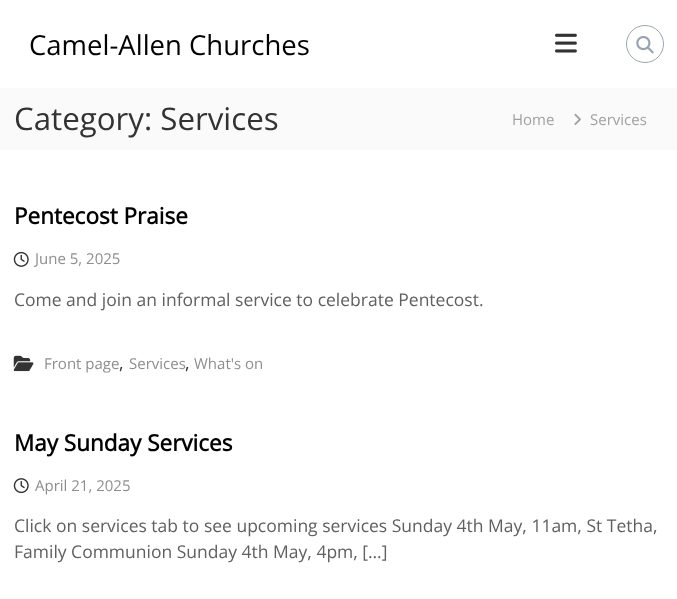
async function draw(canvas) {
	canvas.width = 677;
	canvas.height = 599;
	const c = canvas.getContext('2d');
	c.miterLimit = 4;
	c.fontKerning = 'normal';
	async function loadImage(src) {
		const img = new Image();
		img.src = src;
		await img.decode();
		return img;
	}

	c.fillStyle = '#fff';
	c.fillRect(0, 0, 677, 599);
	c.font = '27.5px Open Sans';
	c.fillStyle = '#000';
	c.fillText('Camel-Allen Churches', 29, 55);
	c.drawImage(await loadImage('img1.png'), 555, 33, 22, 20);
	c.beginPath();
	c.arc(645, 44, 18.5, 0, 2 * Math.PI);
	c.strokeStyle = '#9ca6b2';
	c.stroke();
	c.drawImage(await loadImage('img2.png'), 636, 36, 18, 18);
	c.fillStyle = '#fafafa';
	c.fillRect(0, 88, 677, 62);
	c.font = '31.25px Open Sans';
	c.fillStyle = '#333';
	c.fillText('Category: Services', 14, 130);
	c.font = '15px Open Sans';
	c.fillStyle = '#a1a1a1';
	c.fillText('Home', 512, 125);
	c.drawImage(await loadImage('img3.png'), 574, 113, 7, 12);
	c.fillText('Services', 590, 125);
	c.font = 'bold 22.5px Open Sans';
	c.fillStyle = '#000';
	c.fillText('Pentecost Praise', 14, 224);
	c.drawImage(await loadImage('img4.png'), 13, 251, 16, 16);
	c.font = '15px Open Sans';
	c.fillStyle = '#8e8e8e';
	c.fillText('June 5, 2025', 35, 264);
	c.font = '17.5px Open Sans';
	c.fillStyle = '#606060';
	c.fillText('Come and join an informal service to celebrate Pentecost.', 14, 306);
	c.drawImage(await loadImage('img5.png'), 13, 355, 21, 17);
	c.font = '15px Open Sans';
	c.fillStyle = '#8e8e8e';
	c.fillText('Front page', 44, 369);
	c.font = '17.5px Open Sans';
	c.fillStyle = '#333';
	c.fillText(',', 119, 369);
	c.font = '15px Open Sans';
	c.fillStyle = '#8e8e8e';
	c.fillText('Services', 129, 369);
	c.font = '17.5px Open Sans';
	c.fillStyle = '#333';
	c.fillText(',', 185, 369);
	c.font = '15px Open Sans';
	c.fillStyle = '#8e8e8e';
	c.fillText('What\'s on', 194, 369);
	c.font = 'bold 22.5px Open Sans';
	c.fillStyle = '#000';
	c.fillText('May Sunday Services', 14, 451);
	c.drawImage(await loadImage('img6.png'), 13, 478, 16, 16);
	c.font = '15px Open Sans';
	c.fillStyle = '#8e8e8e';
	c.fillText('April 21, 2025', 35, 491);
	c.font = '17.5px Open Sans';
	c.fillStyle = '#606060';
	c.fillText('Click on services tab to see upcoming services Sunday 4th May, 11am, St Tetha,', 14, 532);
	c.fillText('Family Communion Sunday 4th May, 4pm, […]', 14, 558);
}

draw(document.querySelector('canvas'));
